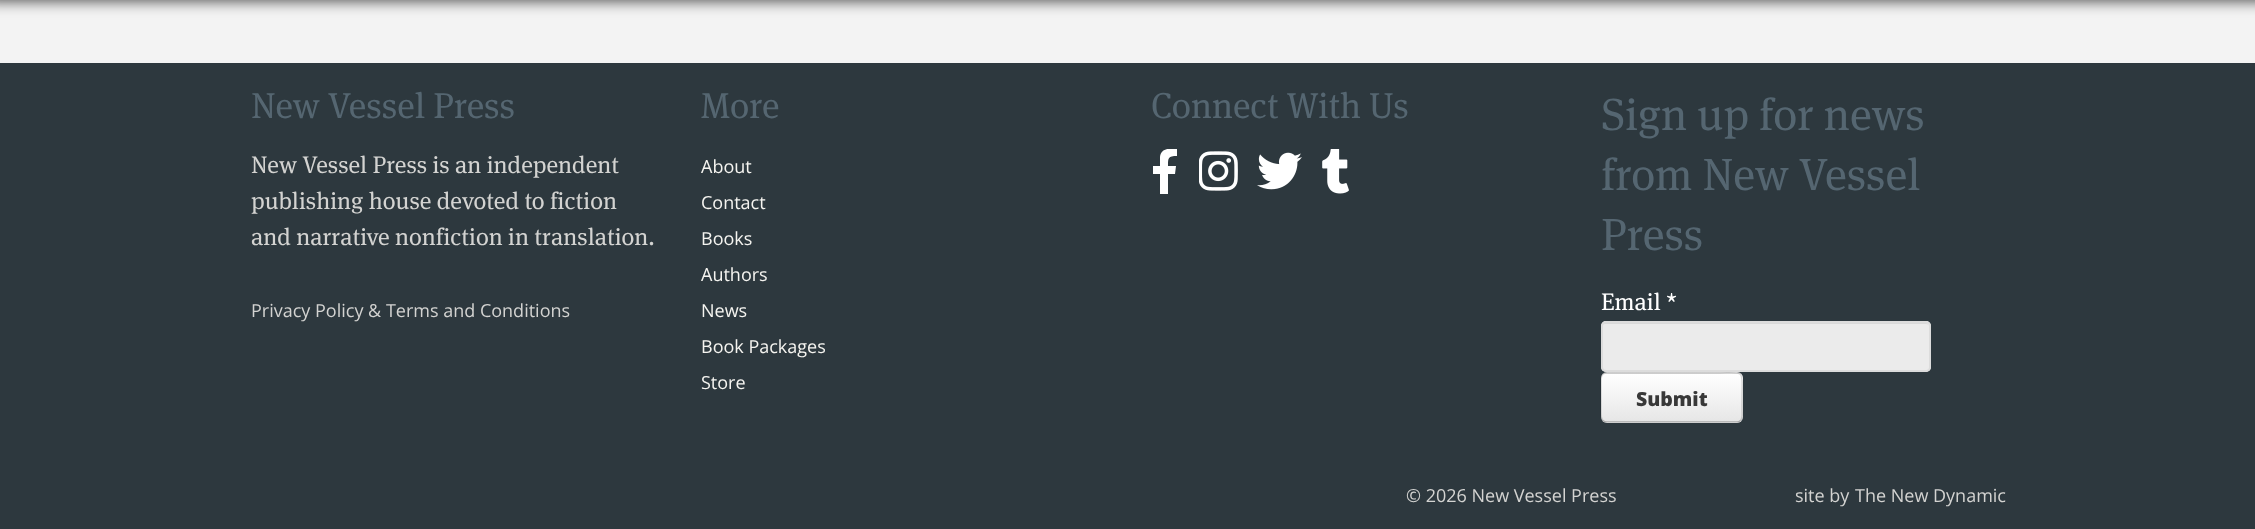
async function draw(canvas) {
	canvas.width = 2255;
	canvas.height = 529;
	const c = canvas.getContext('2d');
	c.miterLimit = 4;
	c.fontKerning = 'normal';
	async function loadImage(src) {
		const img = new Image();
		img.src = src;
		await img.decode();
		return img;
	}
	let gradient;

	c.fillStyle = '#f3f3f3';
	c.fillRect(0, 0, 2255, 529);
	c.fillStyle = '#000000cc';
	c.filter = 'blur(7.5px)';
	c.beginPath();
	c.rect(-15, -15, 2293, 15);
	c.fill();
	c.filter = 'none';
	c.fillStyle = '#2d383e';
	c.fillRect(0, 63, 2255, 466);
	c.font = '500 36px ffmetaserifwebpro';
	c.fillStyle = '#556671';
	c.fillText('New Vessel Press', 251, 118);
	c.font = '500 24px ffmetaserifwebpro';
	c.fillStyle = '#d3d3d1';
	for (const [text, x, y] of [
		['New Vessel Press is an independent', 251, 173],
		['publishing house devoted to fiction', 251, 209],
		['and narrative nonfiction in translation.', 251, 245],
	]) {
		c.fillText(text, x, y);
	}
	c.font = '18px Open Sans';
	c.fillText('Privacy Policy & Terms and Conditions', 251, 317);
	c.font = '500 36px ffmetaserifwebpro';
	c.fillStyle = '#556671';
	c.fillText('More', 701, 118);
	c.font = '18px Open Sans';
	c.fillStyle = '#f5f4f0';
	for (const [text, x, y] of [
		['About', 701, 173],
		['Contact', 701, 209],
		['Books', 701, 245],
		['Authors', 701, 281],
		['News', 701, 317],
		['Book Packages', 701, 353],
		['Store', 701, 389],
	]) {
		c.fillText(text, x, y);
	}
	c.font = '500 36px ffmetaserifwebpro';
	c.fillStyle = '#556671';
	c.fillText('Connect With Us', 1151, 118);
	c.save();
	c.beginPath();
	c.rect(1151, 149, 28, 45);
	c.clip();
	c.fillStyle = '#fff';
	c.beginPath();
	c.moveTo(1175, 174);
	c.lineTo(1176, 166);
	c.lineTo(1168, 166);
	c.bezierCurveTo(1168, 158, 1168, 156, 1177, 156);
	c.lineTo(1177, 149);
	c.bezierCurveTo(1170, 148, 1161, 148, 1160, 157);
	c.lineTo(1160, 166);
	c.lineTo(1153, 166);
	c.lineTo(1153, 174);
	c.lineTo(1160, 174);
	c.lineTo(1160, 194);
	c.lineTo(1168, 194);
	c.lineTo(1168, 174);
	c.closePath();
	c.fill();
	c.restore();
	c.drawImage(await loadImage('img1.png'), 1199, 151, 39, 40);
	c.drawImage(await loadImage('img2.png'), 1257, 152, 45, 38);
	c.drawImage(await loadImage('img3.png'), 1322, 149, 27, 45);
	c.font = '500 45px ffmetaserifwebpro';
	for (const [text, x, y] of [
		['Sign up for news', 1601, 130],
		['from New Vessel', 1601, 190],
		['Press', 1601, 250],
	]) {
		c.fillText(text, x, y);
	}
	c.font = '500 24px ffmetaserifwebpro';
	c.fillStyle = '#fff';
	c.fillText('Email *', 1601, 310);
	c.fillStyle = '#ebebeb';
	c.beginPath();
	c.roundRect(1601, 321, 330, 51, 5);
	c.fill();
	c.fillStyle = '#d9d9d9';
	c.beginPath();
	c.moveTo(1605, 324);
	c.lineTo(1926, 324);
	c.bezierCurveTo(1928, 324, 1929, 325, 1929, 327);
	c.bezierCurveTo(1929, 325, 1928, 323, 1926, 323);
	c.lineTo(1605, 323);
	c.bezierCurveTo(1603, 323, 1602, 325, 1602, 327);
	c.bezierCurveTo(1602, 325, 1603, 324, 1605, 324);
	c.closePath();
	c.fill();
	c.beginPath();
	c.roundRect(1602, 322, 328, 49, 4);
	c.strokeStyle = '#dcdcdc';
	c.lineWidth = 2;
	c.stroke();
	c.save();
	c.beginPath();
	c.roundRect(1601, 372, 142, 51, 6);
	c.clip();
	gradient = c.createLinearGradient(1672, 326, 1672, 374);
	gradient.addColorStop(0, '#fff');
	gradient.addColorStop(1, '#e6e6e6');
	c.fillStyle = gradient;
	c.fillRect(1601, 372, 142, 2);
	gradient = c.createLinearGradient(1672, 374, 1672, 422);
	gradient.addColorStop(0, '#fff');
	gradient.addColorStop(1, '#e6e6e6');
	c.fillStyle = gradient;
	c.fillRect(1601, 374, 142, 48);
	gradient = c.createLinearGradient(1672, 422, 1672, 470);
	gradient.addColorStop(0, '#fff');
	gradient.addColorStop(1, '#e6e6e6');
	c.fillStyle = gradient;
	c.fillRect(1601, 422, 142, 1);
	c.restore();
	c.beginPath();
	c.moveTo(1740.5, 420.5);
	c.bezierCurveTo(1739.5, 421.5, 1738.5, 422, 1737, 422);
	c.lineTo(1606.5, 422);
	c.bezierCurveTo(1605, 422, 1604, 421.5, 1603, 420.5);
	c.strokeStyle = '#00000040';
	c.lineWidth = 1.5;
	c.stroke();
	c.beginPath();
	c.moveTo(1603, 420.5);
	c.bezierCurveTo(1600.5, 418, 1601, 413.5, 1601, 410.5);
	c.lineTo(1601, 384.5);
	c.bezierCurveTo(1601, 380.5, 1600, 373, 1606.5, 373);
	c.lineTo(1715, 373);
	c.bezierCurveTo(1746.5, 373, 1742, 368, 1742, 397.5);
	c.lineTo(1742, 410.5);
	c.bezierCurveTo(1742, 413.5, 1743, 418, 1740.5, 420.5);
	c.strokeStyle = '#00000026';
	c.stroke();
	c.font = '800 19.5px Open Sans';
	c.fillStyle = '#383838';
	c.fillText('Submit', 1636, 406);
	c.font = '18px Open Sans';
	c.fillStyle = '#d3d3d1';
	for (const [text, x, y] of [
		['© 2026 New Vessel Press', 1406, 502],
		['site by', 1795, 502],
		['The New Dynamic', 1855, 502],
	]) {
		c.fillText(text, x, y);
	}
}

draw(document.querySelector('canvas'));
